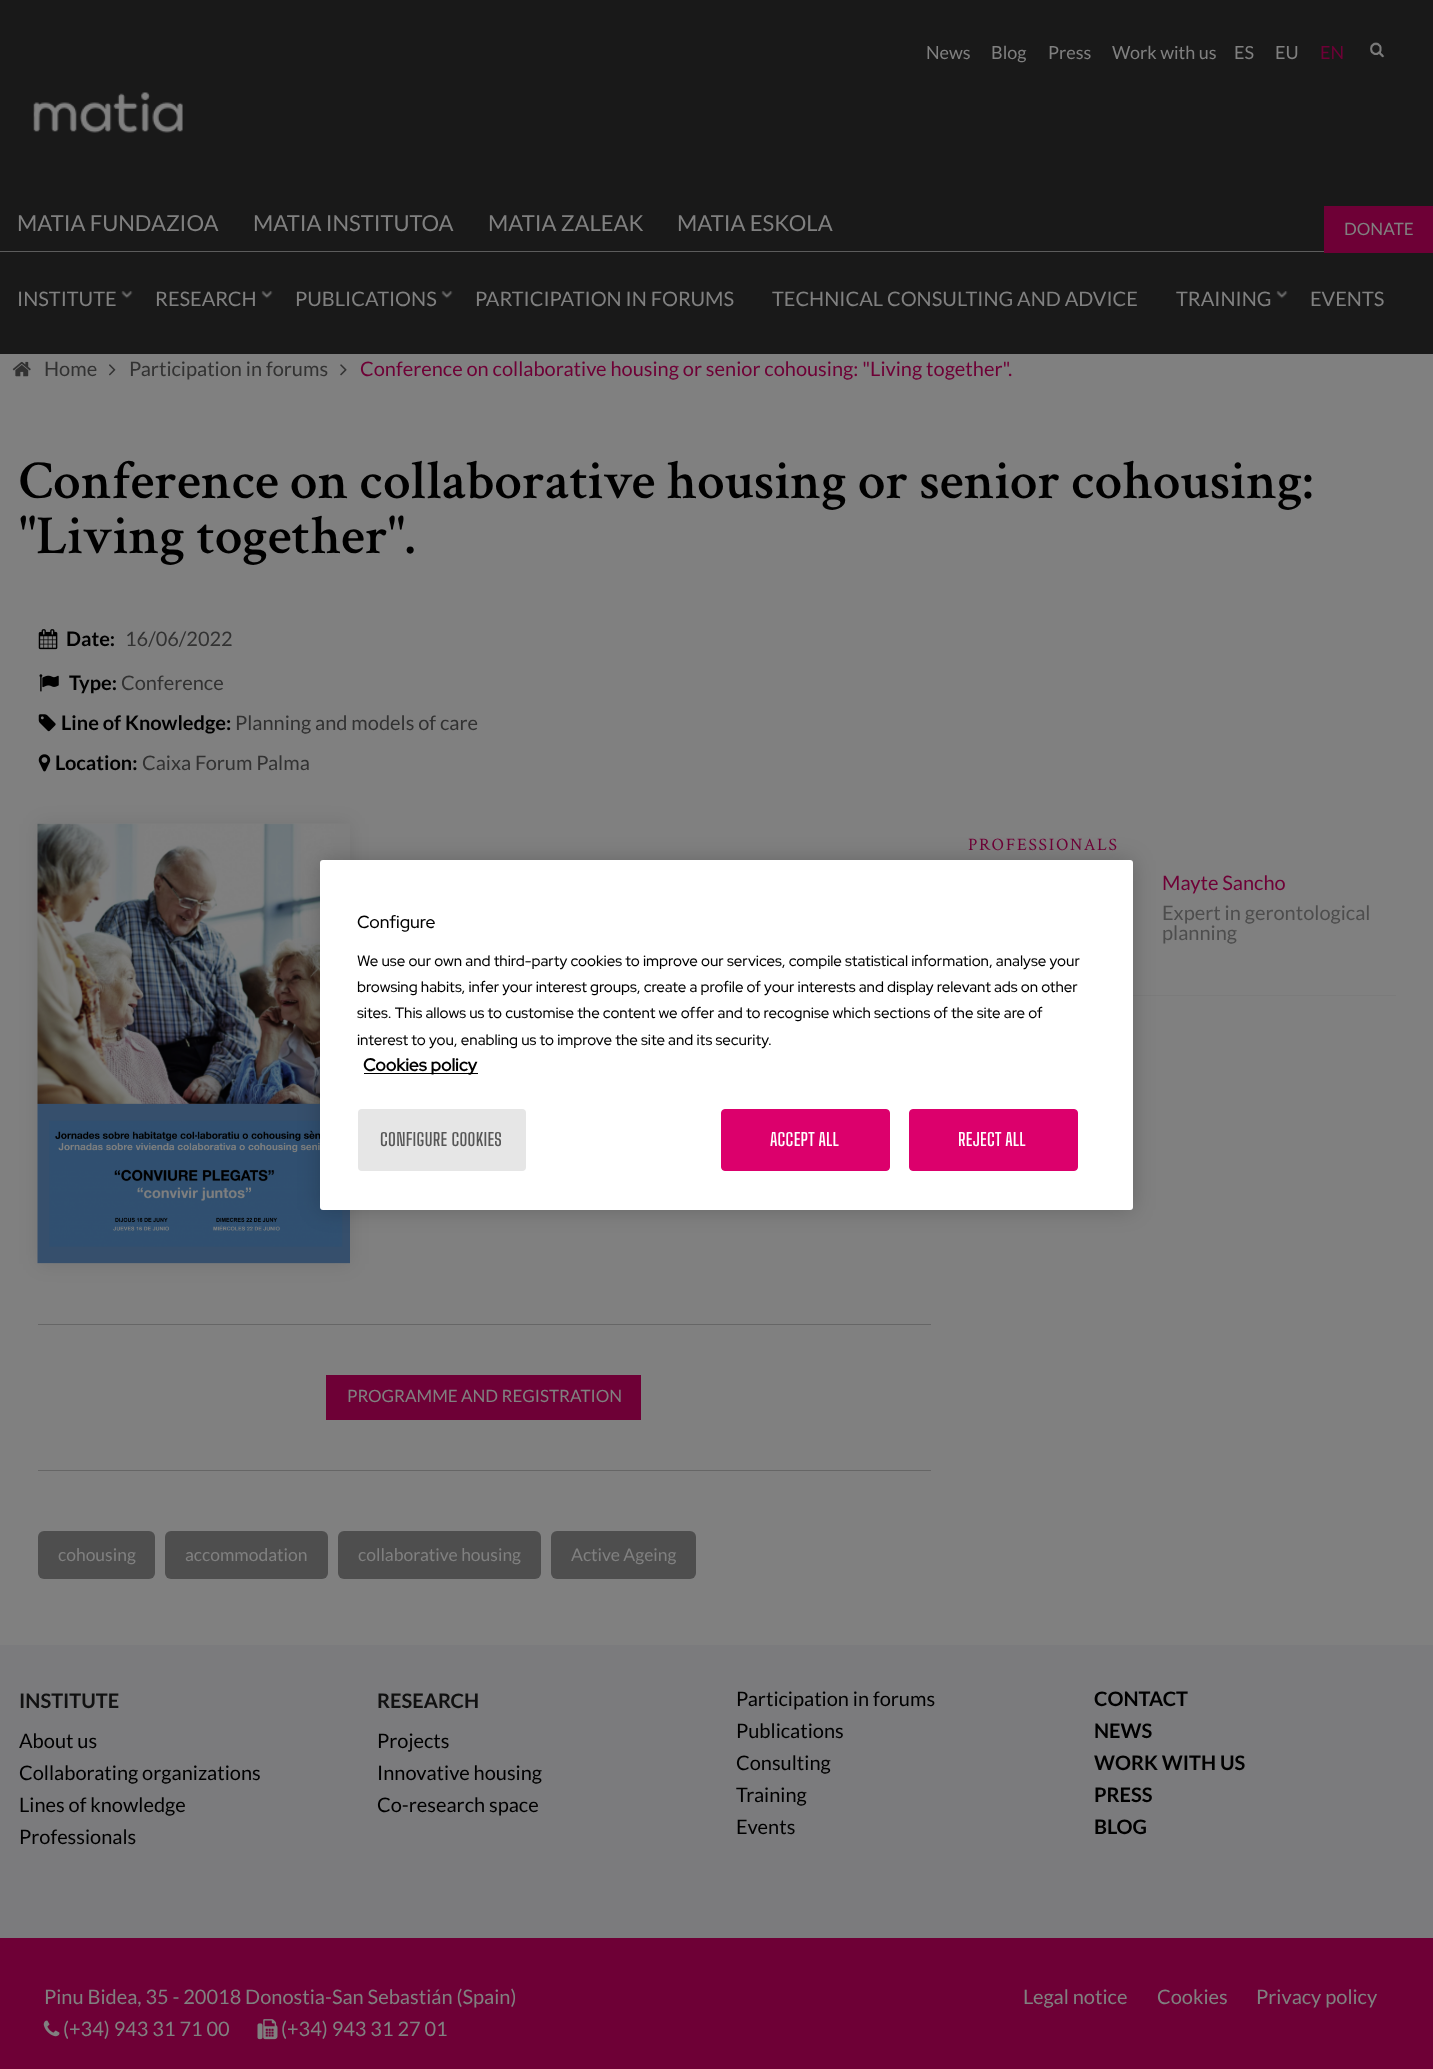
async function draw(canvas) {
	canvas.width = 1433;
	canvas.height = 2069;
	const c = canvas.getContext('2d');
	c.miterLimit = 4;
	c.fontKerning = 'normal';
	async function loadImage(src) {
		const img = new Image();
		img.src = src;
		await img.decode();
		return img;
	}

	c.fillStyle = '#808080';
	c.fillRect(0, 0, 1433, 2069);
	c.fillStyle = '#191919';
	c.fillRect(0, 0, 1433, 354);
	c.font = '18px Lato';
	c.fillStyle = '#808080';
	for (const [text, x, y] of [
		['News', 926, 59],
		['Blog', 991, 59],
		['Press', 1048, 59],
		['Work with us', 1112, 59],
		['ES', 1234, 59],
		['EU', 1275, 59],
	]) {
		c.fillText(text, x, y);
	}
	c.fillStyle = '#6e0036';
	c.fillText('EN', 1320, 59);
	c.drawImage(await loadImage('img1.png'), 1370, 42, 15, 16);
	c.drawImage(await loadImage('img2.png'), 33, 92, 150, 41);
	c.fillStyle = '#5c5c5c';
	c.fillRect(0, 251, 1324, 1);
	c.font = '22px Lato';
	c.fillStyle = '#808080';
	for (const [text, x, y] of [
		['MATIA FUNDAZIOA', 17, 231],
		['MATIA INSTITUTOA', 253, 231],
		['MATIA ZALEAK', 488, 231],
		['MATIA ESKOLA', 677, 231],
	]) {
		c.fillText(text, x, y);
	}
	c.fillStyle = '#6e0036';
	c.fillRect(1324, 206, 109, 47);
	c.font = '17px Lato';
	c.fillStyle = '#808080';
	c.fillText('DONATE', 1344, 235);
	c.font = '20px Lato';
	c.fillText('INSTITUTE', 17, 306);
	c.drawImage(await loadImage('img3.png'), 121, 291, 12, 8);
	c.fillText('RESEARCH', 155, 306);
	c.drawImage(await loadImage('img4.png'), 261, 291, 12, 8);
	c.fillText('PUBLICATIONS', 295, 306);
	c.drawImage(await loadImage('img5.png'), 441, 291, 12, 8);
	for (const [text, x, y] of [
		['PARTICIPATION IN FORUMS', 475, 306],
		['TECHNICAL CONSULTING AND ADVICE', 772, 306],
		['TRAINING', 1176, 306],
	]) {
		c.fillText(text, x, y);
	}
	c.drawImage(await loadImage('img4.png'), 1276, 291, 12, 8);
	c.fillText('EVENTS', 1310, 306);
	c.drawImage(await loadImage('img6.png'), 12, 361, 19, 16);
	c.fillStyle = '#323232';
	c.fillText('Home', 44, 376);
	c.drawImage(await loadImage('img7.png'), 109, 364, 7, 12);
	c.fillText('Participation in forums', 129, 376);
	c.drawImage(await loadImage('img8.png'), 340, 364, 7, 12);
	c.fillStyle = '#6e0036';
	c.fillText('Conference on collaborative housing or senior cohousing: "Living together".', 360, 376);
	c.font = '600 55px Crimson Text';
	c.fillStyle = '#000';
	c.fillText('Conference on collaborative housing or senior cohousing:', 19, 498);
	c.fillText('"Living together".', 19, 553);
	c.drawImage(await loadImage('img9.png'), 38, 629, 20, 21);
	c.font = 'bold 20px Lato';
	c.fillText('Date:', 66, 646);
	c.font = '20px Lato';
	c.fillStyle = '#323232';
	c.fillText('16/06/2022', 125, 646);
	c.drawImage(await loadImage('img10.png'), 39, 674, 20, 18);
	c.font = 'bold 20px Lato';
	c.fillStyle = '#000';
	c.fillText('Type:', 69, 690);
	c.font = '20px Lato';
	c.fillStyle = '#323232';
	c.fillText('Conference', 121, 690);
	c.drawImage(await loadImage('img11.png'), 38, 714, 18, 18);
	c.font = 'bold 20px Lato';
	c.fillStyle = '#000';
	c.fillText('Line of Knowledge:', 61, 730);
	c.font = '20px Lato';
	c.fillStyle = '#323232';
	c.fillText('Planning and models of care', 235, 730);
	c.drawImage(await loadImage('img12.png'), 38, 754, 13, 18);
	c.font = 'bold 20px Lato';
	c.fillStyle = '#000';
	c.fillText('Location:', 55, 770);
	c.font = '20px Lato';
	c.fillStyle = '#323232';
	c.fillText('Caixa Forum Palma', 142, 770);
	c.letterSpacing = '1.75px';
	c.font = '17.5px Crimson Text';
	c.fillStyle = '#6e0036';
	c.fillText('PROFESSIONALS', 968, 850);
	c.fillStyle = '#7b7b7b';
	c.fillRect(1133, 995, 263, 1);
	c.letterSpacing = '0px';
	c.font = '20px Lato';
	c.fillStyle = '#6e0036';
	c.fillText('Mayte Sancho', 1162, 890);
	c.fillStyle = '#4d4d4d';
	c.fillText('Expert in gerontological', 1162, 920);
	c.fillText('planning', 1162, 940);
	c.fillStyle = '#0000001a';
	c.filter = 'blur(9.5px)';
	c.beginPath();
	c.rect(38, 824, 312, 440);
	c.fill();
	c.filter = 'none';
	c.drawImage(await loadImage('img13.png'), 37, 823, 313, 441);
	for (const [x, y, w, h, color] of [
		[38, 1324, 893, 1, '#666'],
		[38, 1470, 893, 1, '#666'],
		[326, 1375, 315, 45, '#6e0036'],
	]) {
		c.fillStyle = color;
		c.fillRect(x, y, w, h);
	}
	c.font = '17px Lato';
	c.fillStyle = '#808080';
	c.fillText('PROGRAMME AND REGISTRATION', 347, 1402);
	c.fillStyle = '#4e4e4e';
	c.beginPath();
	c.roundRect(38, 1531, 117, 48, 6);
	c.fill();
	c.font = '17.5px Lato';
	c.fillStyle = '#808080';
	c.fillText('cohousing', 58, 1561);
	c.fillStyle = '#4e4e4e';
	c.beginPath();
	c.roundRect(165, 1531, 163, 48, 6);
	c.fill();
	c.fillStyle = '#808080';
	c.fillText('accommodation', 185, 1561);
	c.fillStyle = '#4e4e4e';
	c.beginPath();
	c.roundRect(338, 1531, 203, 48, 6);
	c.fill();
	c.fillStyle = '#808080';
	c.fillText('collaborative housing', 358, 1561);
	c.fillStyle = '#4e4e4e';
	c.beginPath();
	c.roundRect(551, 1531, 145, 48, 6);
	c.fill();
	c.fillStyle = '#808080';
	c.fillText('Active Ageing', 571, 1561);
	c.fillStyle = '#7b7b7d';
	c.fillRect(0, 1645, 1433, 293);
	c.font = 'bold 20px Lato';
	c.fillStyle = '#111';
	c.fillText('INSTITUTE', 19, 1708);
	c.font = '20px Lato';
	c.fillStyle = '#000';
	for (const [text, x, y] of [
		['About us', 19, 1748],
		['Collaborating organizations', 19, 1780],
		['Lines of knowledge', 19, 1812],
		['Professionals', 19, 1844],
	]) {
		c.fillText(text, x, y);
	}
	c.font = 'bold 20px Lato';
	c.fillStyle = '#111';
	c.fillText('RESEARCH', 377, 1708);
	c.font = '20px Lato';
	c.fillStyle = '#000';
	for (const [text, x, y] of [
		['Projects', 377, 1748],
		['Innovative housing', 377, 1780],
		['Co-research space', 377, 1812],
		['Participation in forums', 736, 1706],
		['Publications', 736, 1738],
		['Consulting', 736, 1770],
		['Training', 736, 1802],
		['Events', 736, 1834],
	]) {
		c.fillText(text, x, y);
	}
	c.font = 'bold 20px Lato';
	for (const [text, x, y] of [
		['CONTACT', 1094, 1706],
		['NEWS', 1094, 1738],
		['WORK WITH US', 1094, 1770],
		['PRESS', 1094, 1802],
		['BLOG', 1094, 1834],
	]) {
		c.fillText(text, x, y);
	}
	c.fillStyle = '#6e0036';
	c.fillRect(0, 1938, 1433, 131);
	c.font = '20px Lato';
	c.fillStyle = '#808080';
	c.fillText('Pinu Bidea, 35 - 20018 Donostia-San Sebastián (Spain)', 44, 2004);
	c.drawImage(await loadImage('img14.png'), 43, 2020, 17, 17);
	c.fillText('(+34) 943 31 71 00', 63, 2036);
	c.drawImage(await loadImage('img15.png'), 257, 2019, 21, 21);
	for (const [text, x, y] of [
		['(+34) 943 31 27 01', 281, 2036],
		['Legal notice', 1023, 2004],
		['Cookies', 1157, 2004],
		['Privacy policy', 1256, 2004],
	]) {
		c.fillText(text, x, y);
	}
	c.fillStyle = '#00000033';
	c.filter = 'blur(11px)';
	c.beginPath();
	c.roundRect(320, 860, 813, 350, 3);
	c.fill();
	c.filter = 'none';
	c.fillStyle = '#fff';
	c.beginPath();
	c.roundRect(320, 860, 813, 350, 3);
	c.fill();
	c.font = '500 17.5px Red Hat Display';
	c.fillStyle = '#000';
	c.fillText('Configure', 357, 928);
	c.font = '500 15px Red Hat Display';
	for (const [text, x, y] of [
		['We use our own and third-party cookies to improve our services, compile statistical information, analyse your', 357, 966],
		['browsing habits, infer your interest groups, create a profile of your interests and display relevant ads on other', 357, 992],
		['sites. This allows us to customise the content we offer and to recognise which sections of the site are of', 357, 1018],
		['interest to you, enabling us to improve the site and its security.', 357, 1045],
	]) {
		c.fillText(text, x, y);
	}
	c.fillRect(364, 1073, 114, 1);
	c.font = 'bold 17.5px Red Hat Display';
	c.fillText('Cookies policy', 363, 1071);
	c.fillStyle = '#e6e6e6';
	c.beginPath();
	c.roundRect(358, 1109, 168, 62, 4);
	c.fill();
	c.letterSpacing = '0.3px';
	c.font = '100 17.5px Big Shoulders Text';
	c.fillStyle = '#565656';
	c.fillText('CONFIGURE COOKIES', 380, 1146);
	c.fillStyle = '#dc006c';
	c.beginPath();
	c.roundRect(721.5, 1109.5, 168, 61, 3.5);
	c.fill();
	c.strokeStyle = '#dc006c';
	c.stroke();
	c.fillStyle = '#fff';
	c.fillText('ACCEPT ALL', 770, 1146);
	c.fillStyle = '#dc006c';
	c.beginPath();
	c.roundRect(909.5, 1109.5, 168, 61, 3.5);
	c.fill();
	c.stroke();
	c.fillStyle = '#fff';
	c.fillText('REJECT ALL', 958, 1146);
}

draw(document.querySelector('canvas'));
